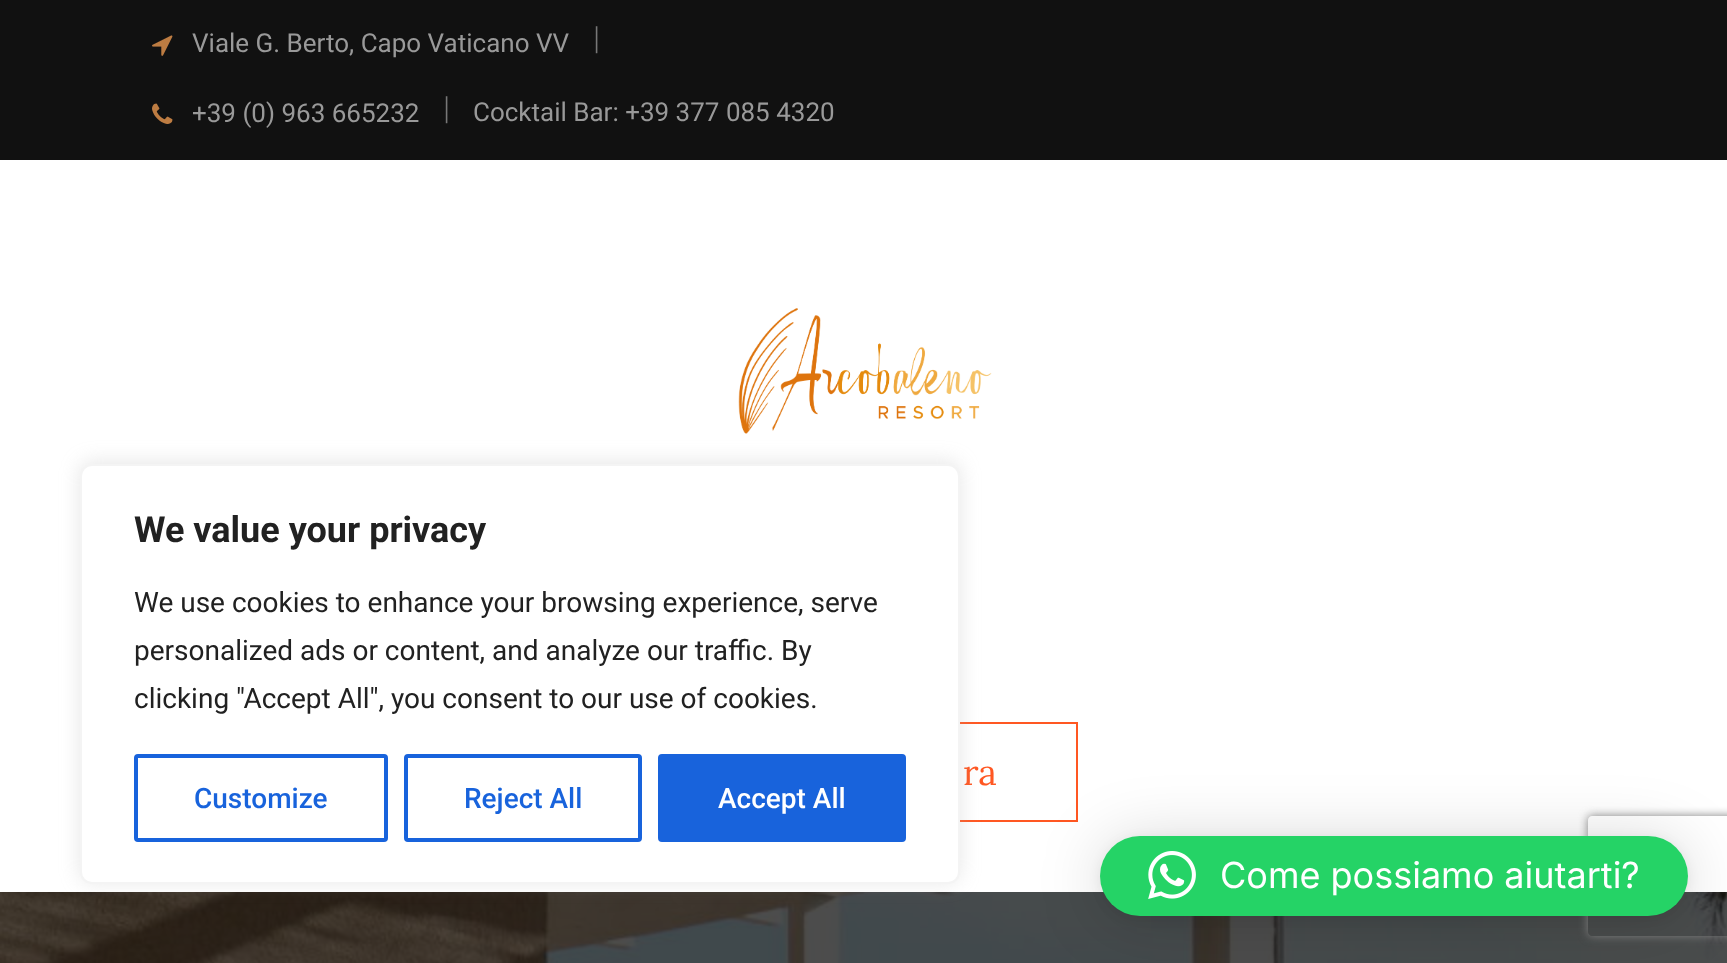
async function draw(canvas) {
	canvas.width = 1727;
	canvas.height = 963;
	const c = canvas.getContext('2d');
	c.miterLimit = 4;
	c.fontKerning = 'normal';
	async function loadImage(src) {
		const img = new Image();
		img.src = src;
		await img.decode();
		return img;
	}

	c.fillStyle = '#fff';
	c.fillRect(0, 0, 1727, 963);
	c.fillStyle = '#111';
	c.fillRect(0, 0, 1727, 160);
	c.drawImage(await loadImage('img1.png'), 152, 35, 21, 21);
	c.font = '26px Roboto';
	c.fillStyle = '#999';
	c.fillText('Viale G. Berto, Capo Vaticano VV', 192, 52);
	c.font = '300 32px Roboto';
	c.fillStyle = '#777';
	c.fillText('|', 593, 49);
	c.drawImage(await loadImage('img2.png'), 152, 103, 21, 21);
	c.font = '26px Roboto';
	c.fillStyle = '#999';
	c.fillText('+39 (0) 963 665232', 192, 122);
	c.font = '300 32px Roboto';
	c.fillStyle = '#777';
	c.fillText('|', 443, 119);
	c.font = '26px Roboto';
	c.fillStyle = '#999';
	c.fillText('Cocktail Bar: +39 377 085 4320', 473, 121);
	c.drawImage(await loadImage('img3.png'), 738, 308, 254, 126);
	c.strokeStyle = '#ff5722';
	c.lineWidth = 2;
	c.strokeRect(653, 723, 424, 98);
	c.font = '36px Lora';
	c.fillStyle = '#ff5722';
	c.fillText('ra', 963, 785);
	c.drawImage(await loadImage('img4.png'), 0, 892, 1727, 71);
	c.fillStyle = '#acabab4d';
	c.filter = 'blur(10px)';
	c.beginPath();
	c.roundRect(80, 462, 880, 420, 12);
	c.fill();
	c.filter = 'none';
	c.fillStyle = '#fff';
	c.beginPath();
	c.roundRect(81, 465, 878, 418, 11);
	c.fill();
	c.strokeStyle = '#f4f4f4';
	c.stroke();
	c.font = 'bold 36px Roboto';
	c.fillStyle = '#212121';
	c.fillText('We value your privacy', 134, 542);
	c.font = '28px Roboto';
	for (const [text, x, y] of [
		['We use cookies to enhance your browsing experience, serve', 134, 612],
		['personalized ads or content, and analyze our traffic. By', 134, 660],
		['clicking "Accept All", you consent to our use of cookies.', 134, 708],
	]) {
		c.fillText(text, x, y);
	}
	c.beginPath();
	c.roundRect(136, 756, 250, 84, 2);
	c.strokeStyle = '#1863dc';
	c.lineWidth = 4;
	c.stroke();
	c.font = '500 28px Roboto';
	c.fillStyle = '#1863dc';
	c.fillText('Customize', 194, 808);
	c.beginPath();
	c.roundRect(406, 756, 234, 84, 2);
	c.stroke();
	c.fillText('Reject All', 464, 808);
	c.beginPath();
	c.roundRect(660, 756, 244, 84, 2);
	c.fill();
	c.stroke();
	c.fillStyle = '#fff';
	c.fillText('Accept All', 718, 808);
	c.fillStyle = '#00000029';
	c.filter = 'blur(32px)';
	c.beginPath();
	c.roundRect(1100, 840, 588, 80, 40);
	c.fill();
	c.filter = 'none';
	c.fillStyle = '#0000000f';
	c.filter = 'blur(6px)';
	c.beginPath();
	c.roundRect(1100, 838, 588, 80, 40);
	c.fill();
	c.filter = 'none';
	c.save();
	c.beginPath();
	c.moveTo(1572, 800);
	c.lineTo(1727, 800);
	c.lineTo(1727, 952);
	c.lineTo(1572, 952);
	c.closePath();
	c.moveTo(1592, 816);
	c.lineTo(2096, 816);
	c.bezierCurveTo(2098, 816, 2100, 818, 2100, 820);
	c.lineTo(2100, 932);
	c.bezierCurveTo(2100, 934, 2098, 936, 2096, 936);
	c.lineTo(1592, 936);
	c.bezierCurveTo(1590, 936, 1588, 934, 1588, 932);
	c.lineTo(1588, 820);
	c.bezierCurveTo(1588, 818, 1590, 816, 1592, 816);
	c.closePath();
	c.clip('evenodd');
	c.fillStyle = '#808080';
	c.filter = 'blur(5px)';
	c.beginPath();
	c.roundRect(1588, 816, 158, 120, 4);
	c.fill();
	c.filter = 'none';
	c.restore();
	c.fillStyle = '#25d366';
	c.beginPath();
	c.roundRect(1100, 836, 588, 80, 40);
	c.fill();
	c.drawImage(await loadImage('img5.png'), 1148, 851, 48, 48);
	c.font = '36px Inter';
	c.fillStyle = '#fff';
	c.fillText('Come possiamo aiutarti?', 1220, 888);
}

draw(document.querySelector('canvas'));
